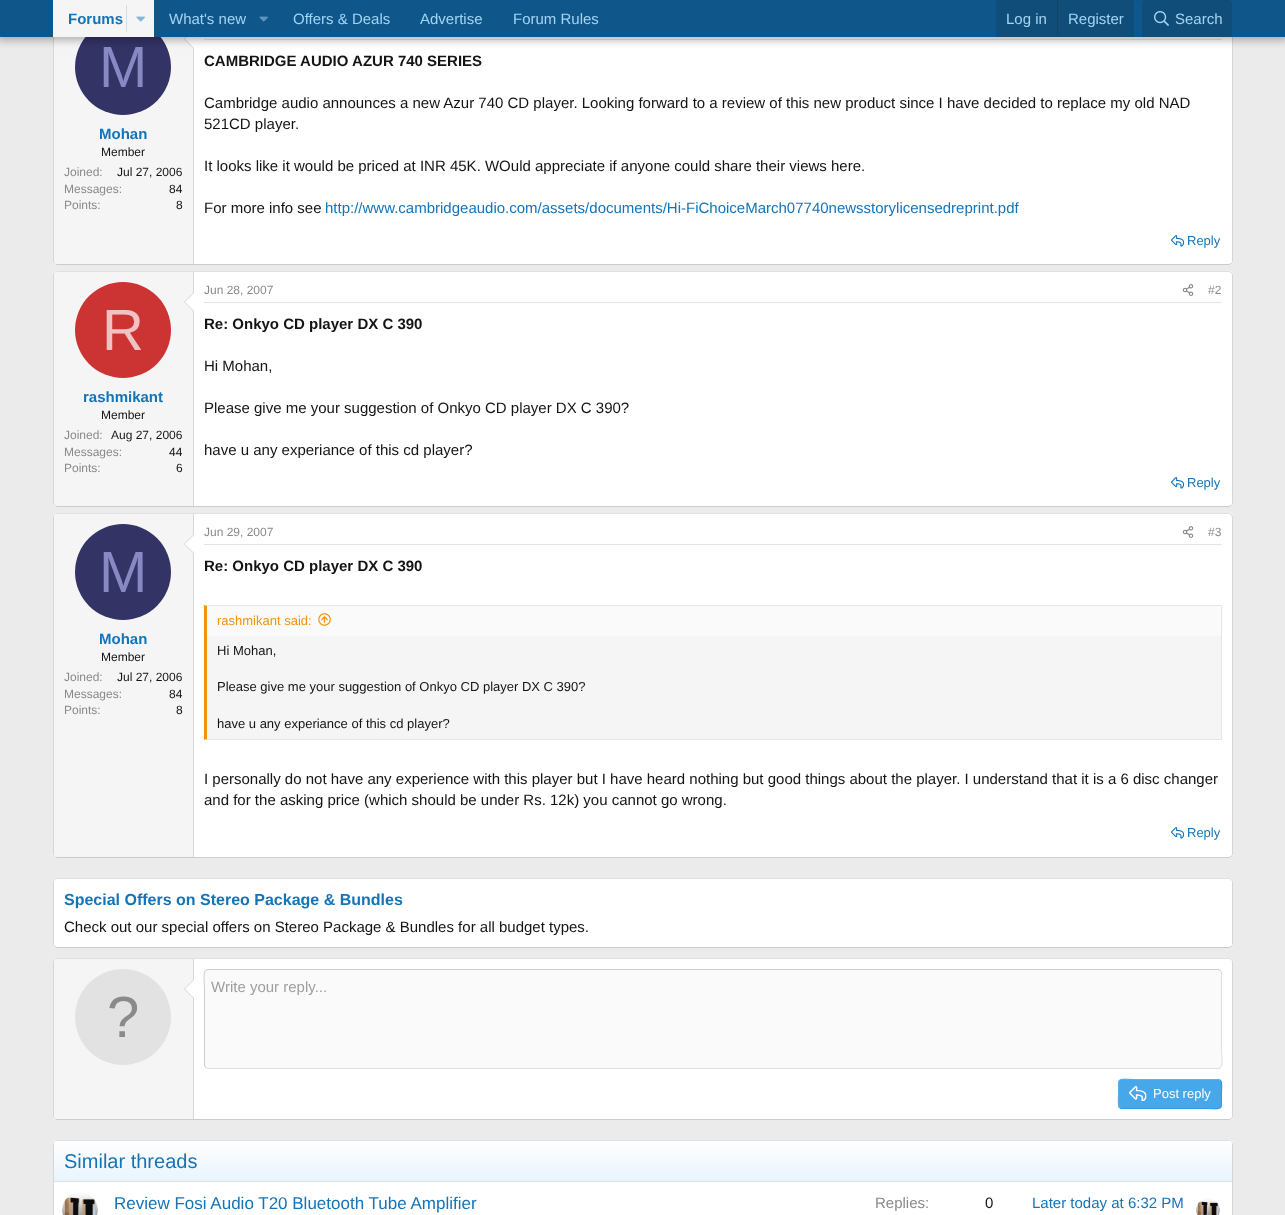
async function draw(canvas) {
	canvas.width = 1285;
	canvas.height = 1215;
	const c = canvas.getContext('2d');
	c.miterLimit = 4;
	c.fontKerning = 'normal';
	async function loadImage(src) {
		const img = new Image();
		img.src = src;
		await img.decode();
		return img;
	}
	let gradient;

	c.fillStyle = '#ebebeb';
	c.fillRect(0, 0, 1285, 1215);
	c.fillStyle = '#fff';
	c.beginPath();
	c.roundRect(53, 8, 1180, 257, 4);
	c.fill();
	c.beginPath();
	c.moveTo(1231.5, 9.5);
	c.bezierCurveTo(1232, 10, 1232.5, 11, 1232.5, 12);
	c.lineTo(1232.5, 261);
	c.bezierCurveTo(1232.5, 262, 1232, 263, 1231.5, 263.5);
	c.strokeStyle = '#d6d6d6';
	c.stroke();
	c.beginPath();
	c.moveTo(1231.5, 263.5);
	c.lineTo(1229, 264.5);
	c.lineTo(57, 264.5);
	c.lineTo(54.5, 263.5);
	c.strokeStyle = '#ccc';
	c.stroke();
	c.beginPath();
	c.moveTo(54.5, 263.5);
	c.bezierCurveTo(54, 263, 53.5, 262, 53.5, 261);
	c.lineTo(53.5, 12);
	c.bezierCurveTo(53.5, 11, 54, 10, 54.5, 9.5);
	c.strokeStyle = '#d6d6d6';
	c.stroke();
	c.fillStyle = '#f5f5f5';
	c.beginPath();
	c.roundRect(54, 9, 140, 255, [3, 0, 0, 3]);
	c.fill();
	c.fillStyle = '#d6d6d6';
	c.fillRect(193, 48, 1, 216);
	c.beginPath();
	c.moveTo(194, 29);
	c.lineTo(194, 49);
	c.lineTo(184, 39);
	c.closePath();
	c.fill();
	c.fillStyle = '#fff';
	c.beginPath();
	c.moveTo(194, 30);
	c.lineTo(194, 48);
	c.lineTo(185, 39);
	c.closePath();
	c.fill();
	c.fillStyle = '#336';
	c.beginPath();
	c.arc(123, 67, 48, 0, 2 * Math.PI);
	c.fill();
	c.fillStyle = '#e5e5e5';
	c.fillRect(204, 39, 1018, 1);
	c.fillStyle = '#0000004d';
	c.filter = 'blur(4px)';
	c.beginPath();
	c.rect(-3, -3, 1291, 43);
	c.fill();
	c.filter = 'none';
	c.fillStyle = '#0f578a';
	c.fillRect(0, 0, 1285, 37);
	c.fillStyle = '#f5f5f5';
	c.fillRect(53, 0, 101, 37);
	c.font = 'bold 15px Liberation Sans';
	c.fillStyle = '#1474b8';
	c.fillText('Forums', 68, 24);
	c.fillStyle = '#cedfeb';
	c.fillRect(126, 5, 1, 27);
	c.drawImage(await loadImage('img1.png'), 136, 16, 9, 6);
	c.font = '15px Liberation Sans';
	c.fillStyle = '#a3d4f5';
	c.fillText('What\'s new', 169, 24);
	c.drawImage(await loadImage('img2.png'), 259, 16, 9, 6);
	for (const [text, x, y] of [
		['Offers & Deals', 293, 24],
		['Advertise', 420, 24],
		['Forum Rules', 513, 24],
	]) {
		c.fillText(text, x, y);
	}
	c.fillStyle = '#104d78';
	c.fillRect(996, 0, 138, 37);
	c.fillStyle = '#a3d4f5';
	c.fillText('Log in', 1006, 24);
	c.fillStyle = '#114469';
	c.fillRect(1057, 0, 1, 37);
	c.fillStyle = '#a3d4f5';
	c.fillText('Register', 1068, 24);
	c.fillStyle = '#104d78';
	c.beginPath();
	c.roundRect(1142, 0, 90, 37, [4, 4, 0, 0]);
	c.fill();
	c.drawImage(await loadImage('img3.png'), 1154, 11, 15, 15);
	c.fillStyle = '#a3d4f5';
	c.fillText('Search', 1175, 24);
	c.font = '58px Liberation Sans';
	c.fillStyle = '#8888c3';
	c.fillText('M', 99, 87);
	c.font = 'bold 15px Liberation Sans';
	c.fillStyle = '#1474b8';
	c.fillText('Mohan', 99, 139);
	c.font = '12px Liberation Sans';
	c.fillStyle = '#141414';
	c.fillText('Member', 101, 156);
	c.fillStyle = '#8a8a8a';
	c.fillText('Joined:', 64, 176);
	c.fillStyle = '#141414';
	c.fillText('Jul 27, 2006', 117, 176);
	c.fillStyle = '#8a8a8a';
	c.fillText('Messages:', 64, 193);
	c.fillStyle = '#141414';
	c.fillText('84', 169, 193);
	c.fillStyle = '#8a8a8a';
	c.fillText('Points:', 64, 209);
	c.fillStyle = '#141414';
	c.fillText('8', 176, 209);
	c.font = 'bold 15px Liberation Sans';
	c.fillText('CAMBRIDGE AUDIO AZUR 740 SERIES', 204, 66);
	c.font = '15px Liberation Sans';
	for (const [text, x, y] of [
		['Cambridge audio announces a new Azur 740 CD player. Looking forward to a review of this new product since I have decided to replace my old NAD', 204, 108],
		['521CD player.', 204, 129],
		['It looks like it would be priced at INR 45K. WOuld appreciate if anyone could share their views here.', 204, 171],
		['For more info see', 204, 213],
	]) {
		c.fillText(text, x, y);
	}
	c.fillStyle = '#1474b8';
	c.fillText('http://www.cambridgeaudio.com/assets/documents/Hi-FiChoiceMarch07740newsstorylicensedreprint.pdf', 325, 213);
	c.drawImage(await loadImage('img4.png'), 1171, 235, 13, 12);
	c.font = '13px Liberation Sans';
	c.fillText('Reply', 1187, 245);
	c.fillStyle = '#fff';
	c.beginPath();
	c.roundRect(53, 271, 1180, 236, 4);
	c.fill();
	c.beginPath();
	c.moveTo(54.5, 272.5);
	c.lineTo(57, 271.5);
	c.lineTo(1229, 271.5);
	c.lineTo(1231.5, 272.5);
	c.strokeStyle = '#e0e0e0';
	c.stroke();
	c.beginPath();
	c.moveTo(1231.5, 272.5);
	c.bezierCurveTo(1232, 273, 1232.5, 274, 1232.5, 275);
	c.lineTo(1232.5, 503);
	c.bezierCurveTo(1232.5, 504, 1232, 505, 1231.5, 505.5);
	c.strokeStyle = '#d6d6d6';
	c.stroke();
	c.beginPath();
	c.moveTo(1231.5, 505.5);
	c.lineTo(1229, 506.5);
	c.lineTo(57, 506.5);
	c.lineTo(54.5, 505.5);
	c.strokeStyle = '#ccc';
	c.stroke();
	c.beginPath();
	c.moveTo(54.5, 505.5);
	c.bezierCurveTo(54, 505, 53.5, 504, 53.5, 503);
	c.lineTo(53.5, 275);
	c.bezierCurveTo(53.5, 274, 54, 273, 54.5, 272.5);
	c.strokeStyle = '#d6d6d6';
	c.stroke();
	c.fillStyle = '#f5f5f5';
	c.beginPath();
	c.roundRect(54, 272, 140, 234, [3, 0, 0, 3]);
	c.fill();
	c.fillStyle = '#d6d6d6';
	c.fillRect(193, 272, 1, 234);
	c.beginPath();
	c.moveTo(194, 292);
	c.lineTo(194, 312);
	c.lineTo(184, 302);
	c.closePath();
	c.fill();
	c.fillStyle = '#fff';
	c.beginPath();
	c.moveTo(194, 293);
	c.lineTo(194, 311);
	c.lineTo(185, 302);
	c.closePath();
	c.fill();
	c.fillStyle = '#c33';
	c.beginPath();
	c.arc(123, 330, 48, 0, 2 * Math.PI);
	c.fill();
	c.font = '58px Liberation Sans';
	c.fillStyle = '#f0c2c2';
	c.fillText('R', 102, 350);
	c.font = 'bold 15px Liberation Sans';
	c.fillStyle = '#1474b8';
	c.fillText('rashmikant', 83, 402);
	c.font = '12px Liberation Sans';
	c.fillStyle = '#141414';
	c.fillText('Member', 101, 419);
	c.fillStyle = '#8a8a8a';
	c.fillText('Joined:', 64, 439);
	c.fillStyle = '#141414';
	c.fillText('Aug 27, 2006', 111, 439);
	c.fillStyle = '#8a8a8a';
	c.fillText('Messages:', 64, 456);
	c.fillStyle = '#141414';
	c.fillText('44', 169, 456);
	c.fillStyle = '#8a8a8a';
	c.fillText('Points:', 64, 472);
	c.fillStyle = '#141414';
	c.fillText('6', 176, 472);
	c.fillStyle = '#e5e5e5';
	c.fillRect(204, 302, 1018, 1);
	c.fillStyle = '#8a8a8a';
	c.fillText('Jun 28, 2007', 204, 294);
	c.drawImage(await loadImage('img5.png'), 1182, 284, 12, 12);
	c.fillText('#2', 1208, 294);
	c.font = 'bold 15px Liberation Sans';
	c.fillStyle = '#141414';
	c.fillText('Re: Onkyo CD player DX C 390', 204, 329);
	c.font = '15px Liberation Sans';
	for (const [text, x, y] of [
		['Hi Mohan,', 204, 371],
		['Please give me your suggestion of Onkyo CD player DX C 390?', 204, 413],
		['have u any experiance of this cd player?', 204, 455],
	]) {
		c.fillText(text, x, y);
	}
	c.drawImage(await loadImage('img4.png'), 1171, 477, 13, 12);
	c.font = '13px Liberation Sans';
	c.fillStyle = '#1474b8';
	c.fillText('Reply', 1187, 487);
	c.fillStyle = '#fff';
	c.beginPath();
	c.roundRect(53, 513, 1180, 345, 4);
	c.fill();
	c.beginPath();
	c.moveTo(54.5, 514.5);
	c.lineTo(57, 513.5);
	c.lineTo(1229, 513.5);
	c.lineTo(1231.5, 514.5);
	c.strokeStyle = '#e0e0e0';
	c.stroke();
	c.beginPath();
	c.moveTo(1231.5, 514.5);
	c.lineTo(1232.5, 517);
	c.lineTo(1232.5, 854);
	c.lineTo(1231.5, 856.5);
	c.strokeStyle = '#d6d6d6';
	c.stroke();
	c.beginPath();
	c.moveTo(1231.5, 856.5);
	c.lineTo(1229, 857.5);
	c.lineTo(57, 857.5);
	c.lineTo(54.5, 856.5);
	c.strokeStyle = '#ccc';
	c.stroke();
	c.beginPath();
	c.moveTo(54.5, 856.5);
	c.lineTo(53.5, 854);
	c.lineTo(53.5, 517);
	c.lineTo(54.5, 514.5);
	c.strokeStyle = '#d6d6d6';
	c.stroke();
	c.fillStyle = '#f5f5f5';
	c.beginPath();
	c.roundRect(54, 514, 140, 343, [3, 0, 0, 3]);
	c.fill();
	c.fillStyle = '#d6d6d6';
	c.fillRect(193, 514, 1, 343);
	c.beginPath();
	c.moveTo(194, 534);
	c.lineTo(194, 554);
	c.lineTo(184, 544);
	c.closePath();
	c.fill();
	c.fillStyle = '#fff';
	c.beginPath();
	c.moveTo(194, 535);
	c.lineTo(194, 553);
	c.lineTo(185, 544);
	c.closePath();
	c.fill();
	c.fillStyle = '#336';
	c.beginPath();
	c.arc(123, 572, 48, 0, 2 * Math.PI);
	c.fill();
	c.font = '58px Liberation Sans';
	c.fillStyle = '#8888c3';
	c.fillText('M', 99, 592);
	c.font = 'bold 15px Liberation Sans';
	c.fillStyle = '#1474b8';
	c.fillText('Mohan', 99, 644);
	c.font = '12px Liberation Sans';
	c.fillStyle = '#141414';
	c.fillText('Member', 101, 661);
	c.fillStyle = '#8a8a8a';
	c.fillText('Joined:', 64, 681);
	c.fillStyle = '#141414';
	c.fillText('Jul 27, 2006', 117, 681);
	c.fillStyle = '#8a8a8a';
	c.fillText('Messages:', 64, 698);
	c.fillStyle = '#141414';
	c.fillText('84', 169, 698);
	c.fillStyle = '#8a8a8a';
	c.fillText('Points:', 64, 714);
	c.fillStyle = '#141414';
	c.fillText('8', 176, 714);
	c.fillStyle = '#e5e5e5';
	c.fillRect(204, 544, 1018, 1);
	c.fillStyle = '#8a8a8a';
	c.fillText('Jun 29, 2007', 204, 536);
	c.drawImage(await loadImage('img5.png'), 1182, 526, 12, 12);
	c.fillText('#3', 1208, 536);
	c.font = 'bold 15px Liberation Sans';
	c.fillStyle = '#141414';
	c.fillText('Re: Onkyo CD player DX C 390', 204, 571);
	c.fillStyle = '#f5f5f5';
	c.fillRect(207, 636, 1014, 103);
	c.fillStyle = '#e5e5e5';
	c.beginPath();
	c.moveTo(204, 605);
	c.lineTo(1222, 605);
	c.lineTo(1221, 606);
	c.lineTo(207, 606);
	c.closePath();
	c.fill();
	c.fillRect(1221, 605, 1, 135);
	c.beginPath();
	c.moveTo(1222, 740);
	c.lineTo(204, 740);
	c.lineTo(207, 739);
	c.lineTo(1221, 739);
	c.closePath();
	c.fill();
	c.fillStyle = '#f2930d';
	c.beginPath();
	c.moveTo(204, 740);
	c.lineTo(204, 605);
	c.lineTo(207, 606);
	c.lineTo(207, 739);
	c.closePath();
	c.fill();
	c.fillStyle = '#fafafa';
	c.fillRect(207, 606, 1014, 30);
	c.font = '13px Liberation Sans';
	c.fillStyle = '#f2930d';
	c.fillText('rashmikant said:', 217, 625);
	c.drawImage(await loadImage('img6.png'), 318, 613, 13, 13);
	c.fillStyle = '#141414';
	for (const [text, x, y] of [
		['Hi Mohan,', 217, 655],
		['Please give me your suggestion of Onkyo CD player DX C 390?', 217, 691],
		['have u any experiance of this cd player?', 217, 728],
	]) {
		c.fillText(text, x, y);
	}
	c.font = '15px Liberation Sans';
	c.fillText('I personally do not have any experience with this player but I have heard nothing but good things about the player. I understand that it is a 6 disc changer', 204, 784);
	c.fillText('and for the asking price (which should be under Rs. 12k) you cannot go wrong.', 204, 805);
	c.drawImage(await loadImage('img4.png'), 1171, 827, 13, 12);
	c.font = '13px Liberation Sans';
	c.fillStyle = '#1474b8';
	c.fillText('Reply', 1187, 837);
	c.fillStyle = '#fff';
	c.beginPath();
	c.roundRect(53, 878, 1180, 70, 4);
	c.fill();
	c.beginPath();
	c.moveTo(54.5, 879.5);
	c.lineTo(57, 878.5);
	c.lineTo(1229, 878.5);
	c.lineTo(1231.5, 879.5);
	c.strokeStyle = '#e0e0e0';
	c.stroke();
	c.beginPath();
	c.moveTo(1231.5, 879.5);
	c.lineTo(1232.5, 881.5);
	c.lineTo(1232.5, 944.5);
	c.lineTo(1231.5, 946.5);
	c.strokeStyle = '#d6d6d6';
	c.stroke();
	c.beginPath();
	c.moveTo(1231.5, 946.5);
	c.lineTo(1229, 947.5);
	c.lineTo(57, 947.5);
	c.lineTo(54.5, 946.5);
	c.strokeStyle = '#ccc';
	c.stroke();
	c.beginPath();
	c.moveTo(54.5, 946.5);
	c.lineTo(53.5, 944.5);
	c.lineTo(53.5, 881.5);
	c.lineTo(54.5, 879.5);
	c.strokeStyle = '#d6d6d6';
	c.stroke();
	c.font = 'bold 16px Liberation Sans';
	c.fillStyle = '#1474b8';
	c.fillText('Special Offers on Stereo Package & Bundles', 64, 905);
	c.font = '15px Liberation Sans';
	c.fillStyle = '#141414';
	c.fillText('Check out our special offers on Stereo Package & Bundles for all budget types.', 64, 932);
	c.fillStyle = '#fff';
	c.beginPath();
	c.roundRect(53, 958, 1180, 162, 4);
	c.fill();
	c.beginPath();
	c.moveTo(54.5, 959.5);
	c.lineTo(57, 958.5);
	c.lineTo(1229, 958.5);
	c.lineTo(1231.5, 959.5);
	c.strokeStyle = '#e0e0e0';
	c.stroke();
	c.beginPath();
	c.moveTo(1231.5, 959.5);
	c.bezierCurveTo(1232, 960, 1232.5, 961, 1232.5, 962);
	c.lineTo(1232.5, 1116);
	c.bezierCurveTo(1232.5, 1117, 1232, 1118, 1231.5, 1118.5);
	c.strokeStyle = '#d6d6d6';
	c.stroke();
	c.beginPath();
	c.moveTo(1231.5, 1118.5);
	c.lineTo(1229, 1119.5);
	c.lineTo(57, 1119.5);
	c.lineTo(54.5, 1118.5);
	c.strokeStyle = '#ccc';
	c.stroke();
	c.beginPath();
	c.moveTo(54.5, 1118.5);
	c.bezierCurveTo(54, 1118, 53.5, 1117, 53.5, 1116);
	c.lineTo(53.5, 962);
	c.bezierCurveTo(53.5, 961, 54, 960, 54.5, 959.5);
	c.strokeStyle = '#d6d6d6';
	c.stroke();
	c.fillStyle = '#f5f5f5';
	c.beginPath();
	c.roundRect(54, 959, 140, 160, [3, 0, 0, 3]);
	c.fill();
	c.fillStyle = '#d6d6d6';
	c.fillRect(193, 959, 1, 160);
	c.beginPath();
	c.moveTo(194, 979);
	c.lineTo(194, 999);
	c.lineTo(184, 989);
	c.closePath();
	c.fill();
	c.fillStyle = '#fff';
	c.beginPath();
	c.moveTo(194, 980);
	c.lineTo(194, 998);
	c.lineTo(185, 989);
	c.closePath();
	c.fill();
	c.fillStyle = '#e2e2e2';
	c.beginPath();
	c.arc(123, 1017, 48, 0, 2 * Math.PI);
	c.fill();
	c.font = '58px Liberation Sans';
	c.fillStyle = '#8a8a8a';
	c.fillText('?', 107, 1037);
	c.fillStyle = '#fafafa';
	c.beginPath();
	c.roundRect(204, 969, 1018, 100, 4);
	c.fill();
	c.beginPath();
	c.moveTo(1220.5, 970.5);
	c.lineTo(1221.5, 973);
	c.lineTo(1221.5, 1049.5);
	c.bezierCurveTo(1221.5, 1056.5, 1224, 1068.5, 1218, 1068.5);
	c.lineTo(208, 1068.5);
	c.lineTo(205.5, 1067.5);
	c.strokeStyle = '#e0e0e0';
	c.stroke();
	c.beginPath();
	c.moveTo(205.5, 1067.5);
	c.lineTo(204.5, 1065);
	c.lineTo(204.5, 988.5);
	c.bezierCurveTo(204.5, 981.5, 202, 969.5, 208, 969.5);
	c.lineTo(1218, 969.5);
	c.lineTo(1220.5, 970.5);
	c.strokeStyle = '#ccc';
	c.stroke();
	c.font = '15px Liberation Sans';
	c.fillStyle = '#9e9e9e';
	c.fillText('Write your reply...', 211, 992);
	c.fillStyle = '#47a7eb';
	c.beginPath();
	c.roundRect(1118, 1079, 104, 30, 4);
	c.fill();
	c.beginPath();
	c.moveTo(1220.5, 1080.5);
	c.bezierCurveTo(1222.5, 1082.5, 1221.5, 1091, 1221.5, 1094);
	c.bezierCurveTo(1221.5, 1112.5, 1223, 1108.5, 1202, 1108.5);
	c.lineTo(1122, 1108.5);
	c.lineTo(1119.5, 1107.5);
	c.strokeStyle = '#309ce8';
	c.stroke();
	c.beginPath();
	c.moveTo(1119.5, 1107.5);
	c.bezierCurveTo(1117.5, 1105.5, 1118.5, 1097, 1118.5, 1094);
	c.bezierCurveTo(1118.5, 1075.5, 1117, 1079.5, 1138, 1079.5);
	c.lineTo(1218, 1079.5);
	c.lineTo(1220.5, 1080.5);
	c.strokeStyle = '#5eb2ed';
	c.stroke();
	c.drawImage(await loadImage('img7.png'), 1129, 1086, 18, 15);
	c.font = '13px Liberation Sans';
	c.fillStyle = '#fff';
	c.fillText('Post reply', 1153, 1098);
	c.beginPath();
	c.roundRect(53, 1140, 1180, 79, 4);
	c.fill();
	c.beginPath();
	c.moveTo(54.5, 1141.5);
	c.lineTo(57, 1140.5);
	c.lineTo(1229, 1140.5);
	c.lineTo(1231.5, 1141.5);
	c.strokeStyle = '#e0e0e0';
	c.stroke();
	c.beginPath();
	c.moveTo(1231.5, 1141.5);
	c.lineTo(1232.5, 1144);
	c.lineTo(1232.5, 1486);
	c.lineTo(1231.5, 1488.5);
	c.strokeStyle = '#d6d6d6';
	c.stroke();
	c.beginPath();
	c.moveTo(54.5, 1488.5);
	c.lineTo(53.5, 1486);
	c.lineTo(53.5, 1144);
	c.lineTo(54.5, 1141.5);
	c.stroke();
	gradient = c.createLinearGradient(643, 1181, 643, 1141);
	gradient.addColorStop(0, '#e8f4fc');
	gradient.addColorStop(1, '#fff');
	c.fillStyle = gradient;
	c.beginPath();
	c.roundRect(54, 1141, 1178, 40, [3, 3, 0, 0]);
	c.fill();
	c.fillStyle = '#e0e0e0';
	c.fillRect(54, 1181, 1178, 1);
	c.font = '20px Liberation Sans';
	c.fillStyle = '#1474b8';
	c.fillText('Similar threads', 64, 1168);
	c.drawImage(await loadImage('img8.png'), 62, 1192, 36, 23);
	c.font = '17px Liberation Sans';
	c.fillText('Review Fosi Audio T20 Bluetooth Tube Amplifier', 114, 1209);
	c.font = '15px Liberation Sans';
	c.fillStyle = '#8a8a8a';
	c.fillText('Replies:', 875, 1208);
	c.fillStyle = '#141414';
	c.fillText('0', 985, 1208);
	c.fillStyle = '#1474b8';
	c.fillText('Later today at 6:32 PM', 1032, 1208);
	c.drawImage(await loadImage('img9.png'), 1196, 1198, 24, 17);
}

draw(document.querySelector('canvas'));
